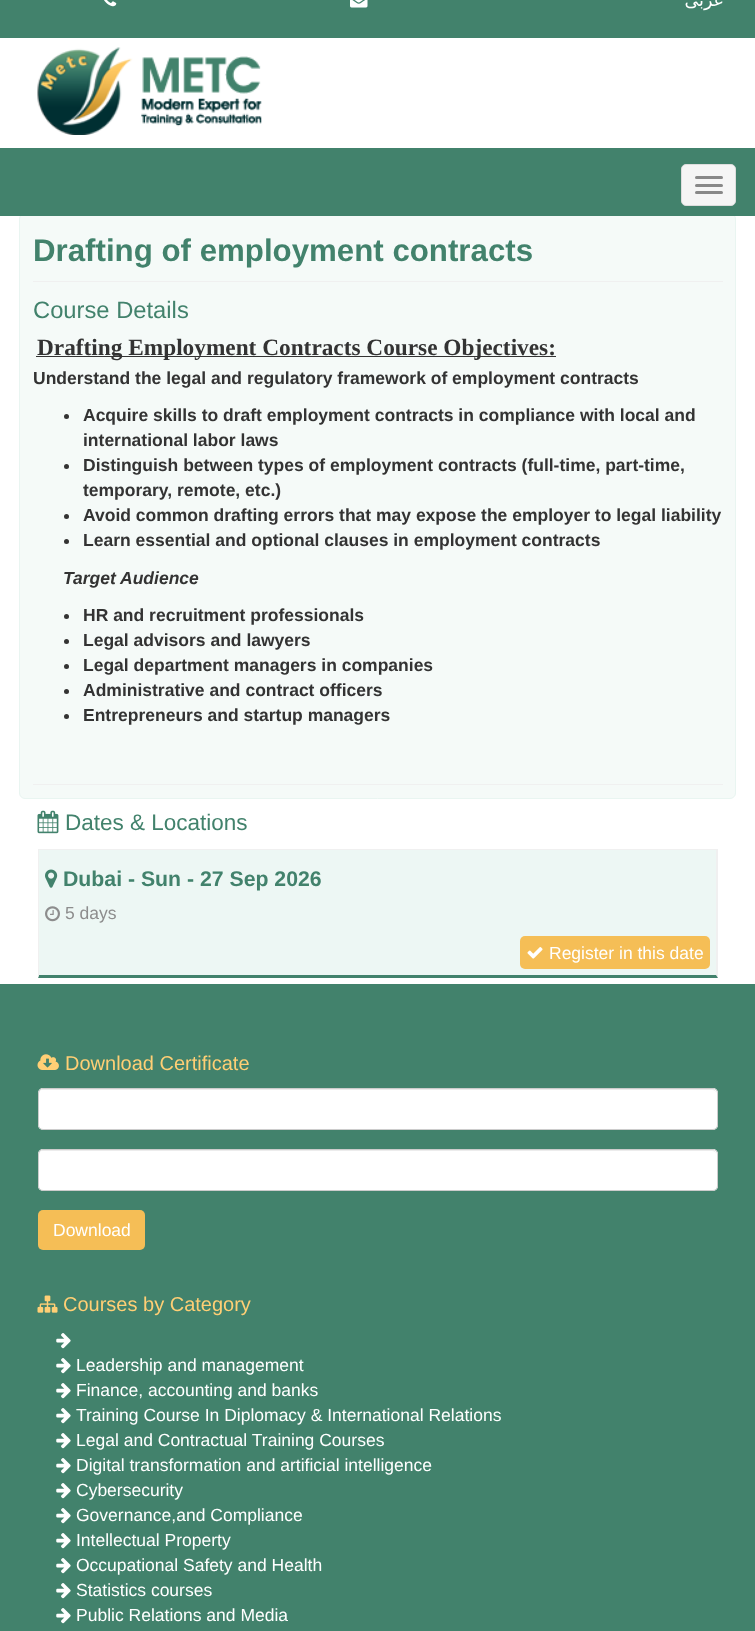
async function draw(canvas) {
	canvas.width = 755;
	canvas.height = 1631;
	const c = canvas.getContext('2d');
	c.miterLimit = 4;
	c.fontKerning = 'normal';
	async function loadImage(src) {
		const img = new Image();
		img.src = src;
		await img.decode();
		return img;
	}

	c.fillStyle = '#fff';
	c.fillRect(0, 0, 755, 1631);
	c.fillStyle = '#42826c';
	c.fillRect(0, 0, 755, 38);
	c.drawImage(await loadImage('img1.png'), 104, 0, 13, 7);
	c.drawImage(await loadImage('img2.png'), 350, 0, 18, 8);
	c.direction = 'rtl';
	c.font = '17.5px DejaVu Sans';
	c.fillStyle = '#fff';
	c.fillText('عربى', 724, 6);
	c.drawImage(await loadImage('img3.png'), 37, 47, 225, 88);
	c.fillStyle = '#f5faf8';
	c.beginPath();
	c.roundRect(19.5, 213.5, 716, 585, 5.5);
	c.fill();
	c.strokeStyle = '#e9f5f1';
	c.stroke();
	c.fillStyle = '#42826c';
	c.fillRect(0, 148, 755, 68);
	c.fillStyle = '#f5f5f5';
	c.beginPath();
	c.roundRect(681.5, 164.5, 54, 41, 4.5);
	c.fill();
	c.strokeStyle = '#ddd';
	c.stroke();
	c.fillStyle = '#888';
	c.beginPath();
	c.roundRect(695, 176, 28, 3, 1.5);
	c.fill();
	c.beginPath();
	c.roundRect(695, 184, 28, 3, 1.5);
	c.fill();
	c.beginPath();
	c.roundRect(695, 191, 28, 3, 1.5);
	c.fill();
	c.fillStyle = '#f0f0f0';
	c.fillRect(33, 281, 690, 1);
	c.direction = 'ltr';
	c.font = 'bold 31.25px Liberation Sans';
	c.fillStyle = '#42826c';
	c.fillText('Drafting of employment contracts', 33, 261);
	c.font = '23.75px Liberation Sans';
	c.fillText('Course Details', 33, 318);
	c.fillStyle = '#333';
	c.fillRect(36, 356, 520, 1);
	c.font = 'bold 23.3px Liberation Serif';
	c.fillText('Drafting Employment Contracts Course Objectives:', 37, 355);
	c.font = 'bold 17.5px Liberation Sans';
	c.fillText('Understand the legal and regulatory framework of employment contracts', 33, 384);
	c.beginPath();
	c.arc(66.5, 416.5, 2.5, 0, 2 * Math.PI);
	c.fill();
	c.fillText('Acquire skills to draft employment contracts in compliance with local and', 83, 421);
	c.fillText('international labor laws', 83, 446);
	c.beginPath();
	c.arc(66.5, 466.5, 2.5, 0, 2 * Math.PI);
	c.fill();
	c.fillText('Distinguish between types of employment contracts (full-time, part-time,', 83, 471);
	c.fillText('temporary, remote, etc.)', 83, 496);
	c.beginPath();
	c.arc(66.5, 516.5, 2.5, 0, 2 * Math.PI);
	c.fill();
	c.fillText('Avoid common drafting errors that may expose the employer to legal liability', 83, 521);
	c.beginPath();
	c.arc(66.5, 541.5, 2.5, 0, 2 * Math.PI);
	c.fill();
	c.fillText('Learn essential and optional clauses in employment contracts', 83, 546);
	c.font = 'italic bold 17.5px Liberation Sans';
	c.fillText('Target Audience', 63, 584);
	c.beginPath();
	c.arc(66.5, 616.5, 2.5, 0, 2 * Math.PI);
	c.fill();
	c.font = 'bold 17.5px Liberation Sans';
	c.fillText('HR and recruitment professionals', 83, 621);
	c.beginPath();
	c.arc(66.5, 641.5, 2.5, 0, 2 * Math.PI);
	c.fill();
	c.fillText('Legal advisors and lawyers', 83, 646);
	c.beginPath();
	c.arc(66.5, 666.5, 2.5, 0, 2 * Math.PI);
	c.fill();
	c.fillText('Legal department managers in companies', 83, 671);
	c.beginPath();
	c.arc(66.5, 691.5, 2.5, 0, 2 * Math.PI);
	c.fill();
	c.fillText('Administrative and contract officers', 83, 696);
	c.beginPath();
	c.arc(66.5, 716.5, 2.5, 0, 2 * Math.PI);
	c.fill();
	c.fillText('Entrepreneurs and startup managers', 83, 721);
	c.fillStyle = '#f0f0f0';
	c.fillRect(33, 784, 690, 1);
	c.drawImage(await loadImage('img4.png'), 37, 810, 22, 24);
	c.font = '22.5px Liberation Sans';
	c.fillStyle = '#42826c';
	c.fillText('Dates & Locations', 65, 830);
	c.fillStyle = '#edf7f4';
	c.fillRect(39, 850, 677, 125);
	c.fillStyle = '#f0f0f0';
	c.fillRect(38, 849, 680, 1);
	c.beginPath();
	c.moveTo(718, 849);
	c.lineTo(718, 978);
	c.lineTo(716, 975);
	c.lineTo(716, 850);
	c.closePath();
	c.fill();
	c.fillStyle = '#42826c';
	c.beginPath();
	c.moveTo(718, 978);
	c.lineTo(38, 978);
	c.lineTo(39, 975);
	c.lineTo(716, 975);
	c.closePath();
	c.fill();
	c.fillStyle = '#f0f0f0';
	c.beginPath();
	c.moveTo(38, 978);
	c.lineTo(38, 849);
	c.lineTo(39, 850);
	c.lineTo(39, 975);
	c.closePath();
	c.fill();
	c.drawImage(await loadImage('img5.png'), 45, 869, 13, 19);
	c.font = 'bold 21.25px Liberation Sans';
	c.fillStyle = '#42826c';
	c.fillText('Dubai - Sun - 27 Sep 2026', 63, 886);
	c.drawImage(await loadImage('img6.png'), 45, 906, 15, 16);
	c.font = '17.5px Liberation Sans';
	c.fillStyle = '#8d8d8d';
	c.fillText('5 days', 65, 919);
	c.fillStyle = '#f5be56';
	c.beginPath();
	c.roundRect(520, 936, 190, 33, 5);
	c.fill();
	c.drawImage(await loadImage('img7.png'), 527, 947, 16, 12);
	c.fillStyle = '#fff';
	c.fillText('Register in this date', 549, 959);
	c.fillStyle = '#42826c';
	c.fillRect(0, 984, 755, 647);
	c.drawImage(await loadImage('img8.png'), 37, 1054, 22, 16);
	c.font = '20px Liberation Sans';
	c.fillStyle = '#ffcf75';
	c.fillText('Download Certificate', 65, 1070);
	c.fillStyle = '#fff';
	c.beginPath();
	c.roundRect(38, 1088, 680, 42, 5);
	c.fill();
	c.fillStyle = '#ececec';
	c.beginPath();
	c.moveTo(42, 1090);
	c.lineTo(712, 1090);
	c.bezierCurveTo(715, 1090, 716, 1092, 716, 1094);
	c.bezierCurveTo(716, 1091, 715, 1089, 712, 1089);
	c.lineTo(43, 1089);
	c.lineTo(40, 1090);
	c.lineTo(39, 1091);
	c.lineTo(39, 1094);
	c.bezierCurveTo(39, 1092, 40, 1090, 42, 1090);
	c.closePath();
	c.fill();
	c.beginPath();
	c.roundRect(38.5, 1088.5, 679, 41, 4.5);
	c.strokeStyle = '#ccc';
	c.stroke();
	c.fillStyle = '#fff';
	c.beginPath();
	c.roundRect(38, 1149, 680, 42, 5);
	c.fill();
	c.fillStyle = '#ececec';
	c.beginPath();
	c.moveTo(42, 1151);
	c.lineTo(712, 1151);
	c.bezierCurveTo(715, 1151, 716, 1153, 716, 1155);
	c.bezierCurveTo(716, 1152, 715, 1150, 712, 1150);
	c.lineTo(43, 1150);
	c.lineTo(40, 1151);
	c.lineTo(39, 1152);
	c.lineTo(39, 1155);
	c.bezierCurveTo(39, 1153, 40, 1151, 42, 1151);
	c.closePath();
	c.fill();
	c.beginPath();
	c.roundRect(38.5, 1149.5, 679, 41, 4.5);
	c.stroke();
	c.fillStyle = '#f5be56';
	c.beginPath();
	c.roundRect(38, 1210, 107, 40, 5);
	c.fill();
	c.font = '17.5px Liberation Sans';
	c.fillStyle = '#fff';
	c.fillText('Download', 53, 1236);
	c.drawImage(await loadImage('img9.png'), 37, 1295, 21, 18);
	c.font = '20px Liberation Sans';
	c.fillStyle = '#ffcf75';
	c.fillText('Courses by Category', 63, 1311);
	c.drawImage(await loadImage('img10.png'), 56, 1333, 15, 16);
	c.drawImage(await loadImage('img10.png'), 56, 1358, 15, 16);
	c.font = '17.5px Liberation Sans';
	c.fillStyle = '#fff';
	c.fillText('Leadership and management', 76, 1371);
	c.drawImage(await loadImage('img10.png'), 56, 1383, 15, 16);
	c.fillText('Finance, accounting and banks', 76, 1396);
	c.drawImage(await loadImage('img10.png'), 56, 1408, 15, 16);
	c.fillText('Training Course In Diplomacy & International Relations', 76, 1421);
	c.drawImage(await loadImage('img10.png'), 56, 1433, 15, 16);
	c.fillText('Legal and Contractual Training Courses', 76, 1446);
	c.drawImage(await loadImage('img10.png'), 56, 1458, 15, 16);
	c.fillText('Digital transformation and artificial intelligence', 76, 1471);
	c.drawImage(await loadImage('img10.png'), 56, 1483, 15, 16);
	c.fillText('Cybersecurity', 76, 1496);
	c.drawImage(await loadImage('img10.png'), 56, 1508, 15, 16);
	c.fillText('Governance,and Compliance', 76, 1521);
	c.drawImage(await loadImage('img10.png'), 56, 1533, 15, 16);
	c.fillText('Intellectual Property', 76, 1546);
	c.drawImage(await loadImage('img10.png'), 56, 1558, 15, 16);
	c.fillText('Occupational Safety and Health', 76, 1571);
	c.drawImage(await loadImage('img10.png'), 56, 1583, 15, 16);
	c.fillText('Statistics courses', 76, 1596);
	c.drawImage(await loadImage('img10.png'), 56, 1608, 15, 16);
	c.fillText('Public Relations and Media', 76, 1621);
}

draw(document.querySelector('canvas'));
